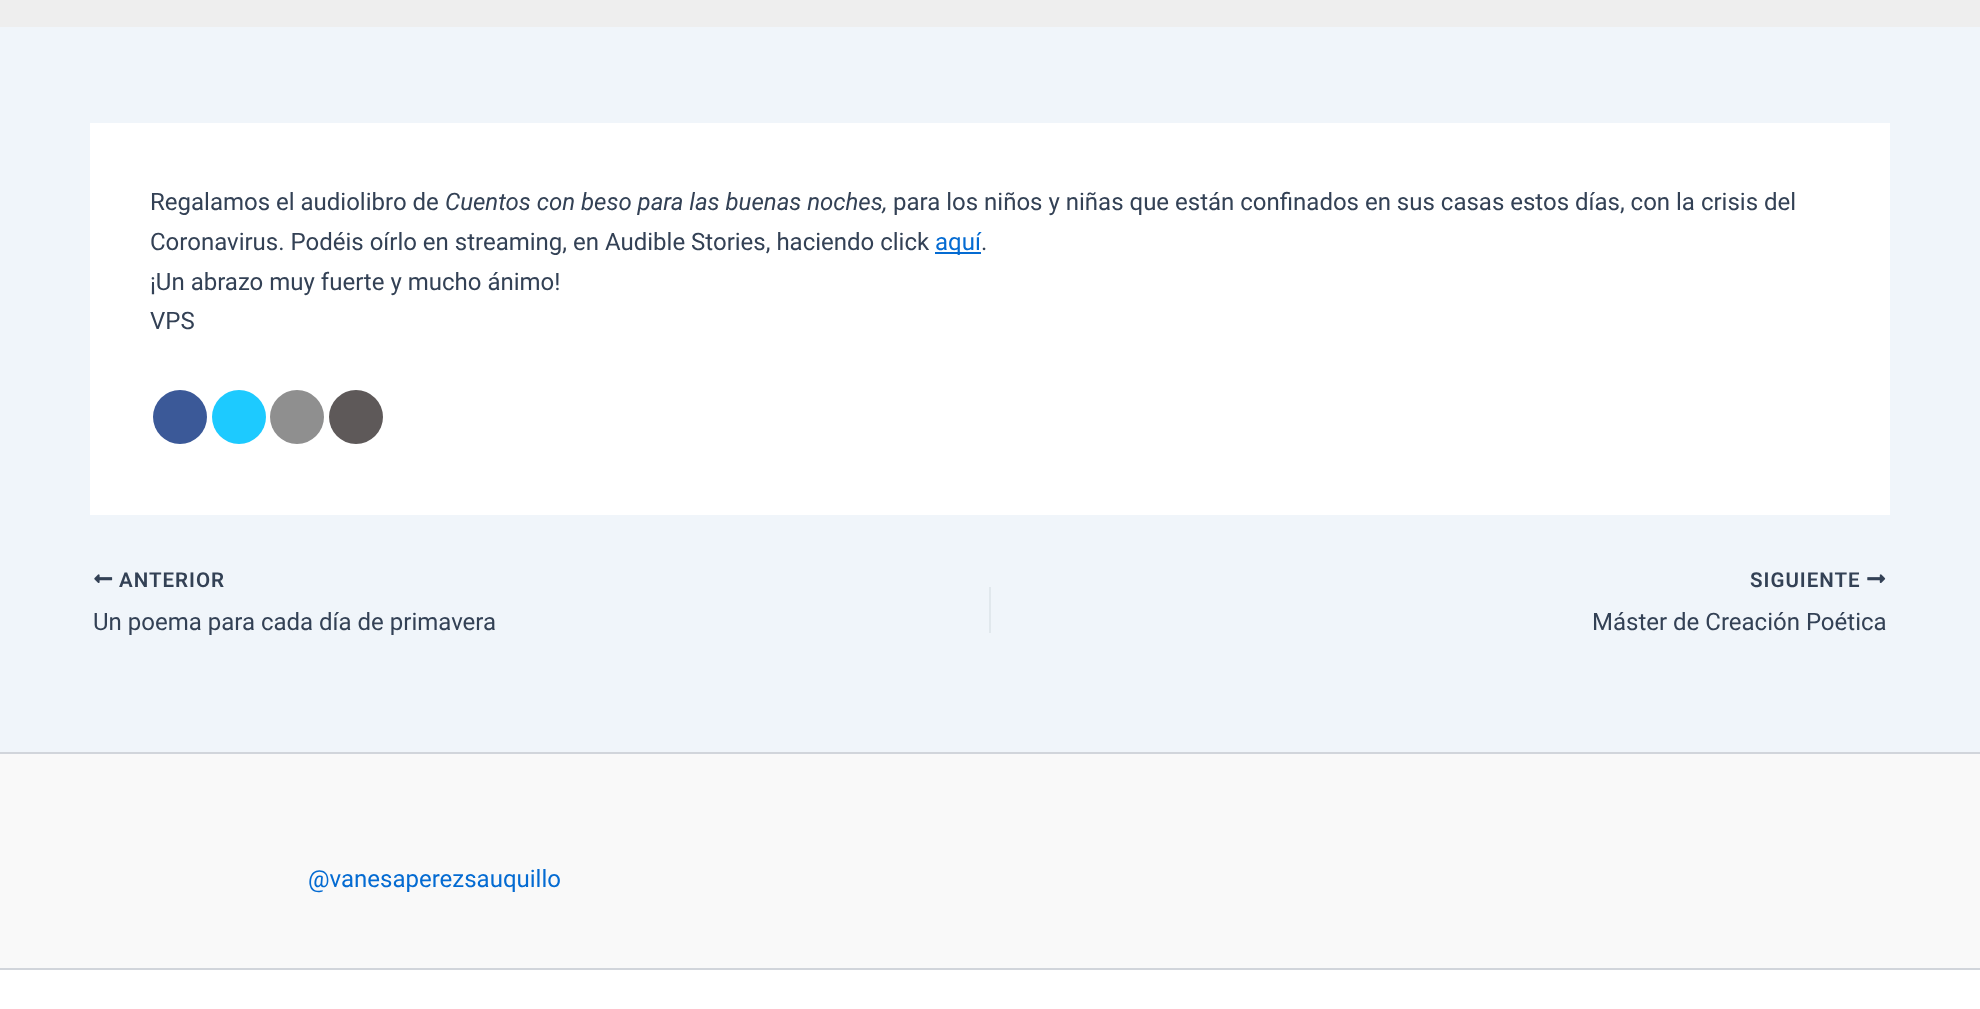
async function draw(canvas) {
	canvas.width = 1980;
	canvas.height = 1009;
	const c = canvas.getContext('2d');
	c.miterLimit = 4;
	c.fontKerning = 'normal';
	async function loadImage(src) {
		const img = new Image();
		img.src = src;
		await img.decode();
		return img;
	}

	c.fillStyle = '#f0f5fa';
	c.fillRect(0, 0, 1980, 1009);
	c.fillStyle = '#eee';
	c.fillRect(0, 0, 1980, 27);
	c.fillStyle = '#fff';
	c.fillRect(90, 123, 1800, 392);
	c.font = '24px Roboto';
	c.fillStyle = '#334155';
	c.fillText('Regalamos el audiolibro de', 150, 210);
	c.font = 'italic 24px Roboto';
	c.fillText('Cuentos con beso para las buenas noches,', 445, 210);
	c.font = '24px Roboto';
	c.fillText('para los niños y niñas que están confinados en sus casas estos días, con la crisis del', 893, 210);
	c.fillText('Coronavirus. Podéis oírlo en streaming, en Audible Stories, haciendo click', 150, 250);
	c.fillStyle = '#046bd2';
	c.fillRect(935, 252, 46, 2);
	c.fillText('aquí', 935, 250);
	c.fillStyle = '#334155';
	for (const [text, x, y] of [
		['.', 981, 250],
		['¡Un abrazo muy fuerte y mucho ánimo!', 150, 290],
		['VPS', 150, 329],
	]) {
		c.fillText(text, x, y);
	}
	c.fillStyle = '#3b5998';
	c.beginPath();
	c.arc(180, 417, 27, 0, 2 * Math.PI);
	c.fill();
	c.fillStyle = '#1dcaff';
	c.beginPath();
	c.arc(239, 417, 27, 0, 2 * Math.PI);
	c.fill();
	c.fillStyle = '#8f8f8f';
	c.beginPath();
	c.arc(297, 417, 27, 0, 2 * Math.PI);
	c.fill();
	c.fillStyle = '#5e5959';
	c.beginPath();
	c.arc(356, 417, 27, 0, 2 * Math.PI);
	c.fill();
	c.drawImage(await loadImage('img1.png'), 94, 574, 19, 9);
	c.letterSpacing = '1px';
	c.font = '600 20.5px Roboto';
	c.fillStyle = '#334155';
	c.fillText('ANTERIOR', 119, 587);
	c.letterSpacing = '0px';
	c.font = '24px Roboto';
	c.fillText('Un poema para cada día de primavera', 93, 630);
	c.fillStyle = '#e1e8ed';
	c.fillRect(989, 587, 2, 46);
	c.letterSpacing = '1px';
	c.font = '600 20.5px Roboto';
	c.fillStyle = '#334155';
	c.fillText('SIGUIENTE', 1750, 587);
	c.drawImage(await loadImage('img2.png'), 1867, 574, 19, 9);
	c.letterSpacing = '0px';
	c.font = '24px Roboto';
	c.fillText('Máster de Creación Poética', 1592, 630);
	c.fillStyle = '#f9f9f9';
	c.fillRect(0, 754, 1980, 214);
	c.fillStyle = '#d1d5db';
	c.fillRect(0, 752, 1980, 2);
	c.fillStyle = '#046bd2';
	c.fillText('@vanesaperezsauquillo', 308, 887);
	c.fillStyle = '#fff';
	c.fillRect(0, 970, 1980, 39);
	c.fillStyle = '#d1d5db';
	c.fillRect(0, 968, 1980, 2);
}

draw(document.querySelector('canvas'));
